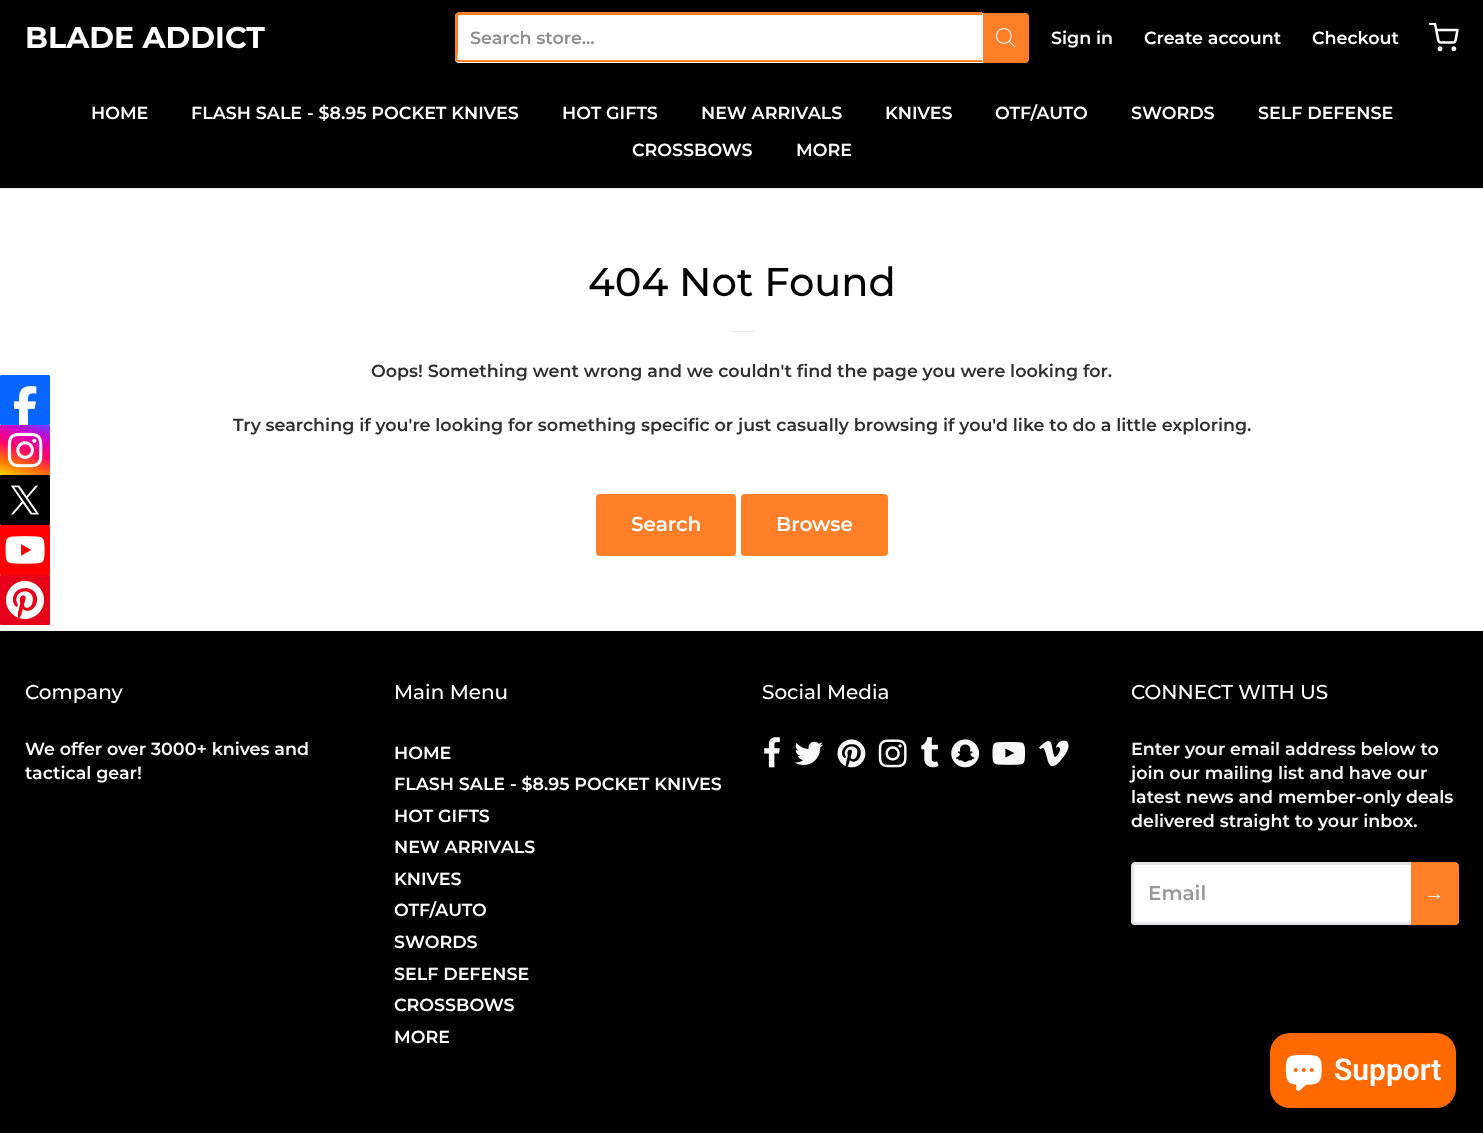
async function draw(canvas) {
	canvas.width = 1483;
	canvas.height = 1133;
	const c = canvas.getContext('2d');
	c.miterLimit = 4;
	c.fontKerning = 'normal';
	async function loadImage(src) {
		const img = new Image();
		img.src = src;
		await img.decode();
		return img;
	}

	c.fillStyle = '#fff';
	c.fillRect(0, 0, 1483, 1133);
	c.fillStyle = '#ebebeb';
	c.fillRect(0, 188, 1483, 1);
	c.fillStyle = '#000';
	c.fillRect(0, 0, 1483, 188);
	c.font = 'bold 30px Montserrat';
	c.fillStyle = '#fff';
	c.fillText('BLADE ADDICT', 25, 48);
	c.beginPath();
	c.roundRect(455, 13, 528, 50, [4, 0, 0, 4]);
	c.fill();
	c.fillStyle = '#ff7f28';
	c.beginPath();
	c.moveTo(459, 12);
	c.lineTo(982, 12);
	c.lineTo(982, 62);
	c.lineTo(459, 62);
	c.bezierCurveTo(457, 62, 455, 61, 455, 59);
	c.lineTo(455, 16);
	c.bezierCurveTo(455, 14, 457, 12, 459, 12);
	c.closePath();
	c.moveTo(459, 15);
	c.lineTo(982, 15);
	c.lineTo(982, 60);
	c.lineTo(459, 60);
	c.bezierCurveTo(456, 60, 458, 54, 458, 52);
	c.lineTo(458, 16);
	c.closePath();
	c.fill('evenodd');
	c.font = '600 17.5px Montserrat';
	c.fillStyle = '#8f8f8f';
	c.fillText('Search store...', 470, 44);
	c.fillStyle = '#ff7f28';
	c.beginPath();
	c.roundRect(984.5, 14.5, 43, 47, [0, 2.5, 2.5, 0]);
	c.fill();
	c.strokeStyle = '#ff7f28';
	c.lineWidth = 3;
	c.stroke();
	c.drawImage(await loadImage('img1.png'), 996, 28, 19, 19);
	c.fillStyle = '#fff';
	for (const [text, x, y] of [
		['Sign in', 1051, 44],
		['Create account', 1144, 44],
		['Checkout', 1312, 44],
	]) {
		c.fillText(text, x, y);
	}
	c.drawImage(await loadImage('img2.png'), 1429, 23, 30, 29);
	for (const [text, x, y] of [
		['HOME', 91, 119],
		['FLASH SALE - $8.95 POCKET KNIVES', 191, 119],
		['HOT GIFTS', 562, 119],
		['NEW ARRIVALS', 701, 119],
		['KNIVES', 885, 119],
		['OTF/AUTO', 995, 119],
		['SWORDS', 1131, 119],
		['SELF DEFENSE', 1258, 119],
		['CROSSBOWS', 632, 156],
		['MORE', 796, 156],
	]) {
		c.fillText(text, x, y);
	}
	c.drawImage(await loadImage('img3.png'), 0, 375, 50, 50);
	c.drawImage(await loadImage('img4.png'), 0, 425, 50, 50);
	c.drawImage(await loadImage('img5.png'), 0, 475, 50, 50);
	c.drawImage(await loadImage('img6.png'), 0, 525, 50, 50);
	c.drawImage(await loadImage('img7.png'), 0, 575, 50, 50);
	c.font = '500 40px Montserrat';
	c.fillStyle = '#030303';
	c.fillText('404 Not Found', 588, 296);
	c.fillStyle = '#eaeaea';
	c.fillRect(730, 331, 25, 1);
	c.font = '600 17.5px Montserrat';
	c.fillStyle = '#303030';
	c.fillText('Oops! Something went wrong and we couldn\'t find the page you were looking for.', 371, 377);
	c.fillText('Try searching if you\'re looking for something specific or just casually browsing if you\'d like to do a little exploring.', 233, 431);
	c.fillStyle = '#ff7f28';
	c.beginPath();
	c.roundRect(597.5, 495.5, 137, 59, 2.5);
	c.fill();
	c.stroke();
	c.font = '600 20px Montserrat';
	c.fillStyle = '#fff';
	c.fillText('Search', 631, 531);
	c.fillStyle = '#ff7f28';
	c.beginPath();
	c.roundRect(742.5, 495.5, 144, 59, 2.5);
	c.fill();
	c.stroke();
	c.fillStyle = '#fff';
	c.fillText('Browse', 776, 531);
	c.fillStyle = '#000';
	c.fillRect(0, 631, 1483, 502);
	c.font = '500 20px Montserrat';
	c.fillStyle = '#fff';
	c.fillText('Company', 25, 699);
	c.font = '600 17.5px Montserrat';
	c.fillStyle = '#f9f9f9';
	c.fillText('We offer over 3000+ knives and', 25, 755);
	c.fillText('tactical gear!', 25, 779);
	c.font = '500 20px Montserrat';
	c.fillStyle = '#fff';
	c.fillText('Main Menu', 394, 699);
	c.font = '600 17.5px Montserrat';
	for (const [text, x, y] of [
		['HOME', 394, 759],
		['FLASH SALE - $8.95 POCKET KNIVES', 394, 790],
		['HOT GIFTS', 394, 822],
		['NEW ARRIVALS', 394, 853],
		['KNIVES', 394, 885],
		['OTF/AUTO', 394, 916],
		['SWORDS', 394, 948],
		['SELF DEFENSE', 394, 980],
		['CROSSBOWS', 394, 1011],
		['MORE', 394, 1043],
	]) {
		c.fillText(text, x, y);
	}
	c.font = '500 20px Montserrat';
	c.fillText('Social Media', 762, 699);
	c.drawImage(await loadImage('img8.png'), 764, 737, 16, 31);
	c.drawImage(await loadImage('img9.png'), 794, 741, 29, 24);
	c.drawImage(await loadImage('img10.png'), 837, 739, 29, 29);
	c.drawImage(await loadImage('img11.png'), 878, 739, 29, 29);
	c.drawImage(await loadImage('img12.png'), 921, 737, 18, 31);
	c.drawImage(await loadImage('img13.png'), 951, 739, 29, 29);
	c.drawImage(await loadImage('img14.png'), 992, 742, 33, 23);
	c.drawImage(await loadImage('img15.png'), 1039, 740, 30, 27);
	c.fillText('CONNECT WITH US', 1131, 699);
	c.font = '600 17.5px Montserrat';
	c.fillStyle = '#f9f9f9';
	for (const [text, x, y] of [
		['Enter your email address below to', 1131, 755],
		['join our mailing list and have our', 1131, 779],
		['latest news and member-only deals', 1131, 803],
		['delivered straight to your inbox.', 1131, 827],
	]) {
		c.fillText(text, x, y);
	}
	c.fillStyle = '#fff';
	c.beginPath();
	c.roundRect(1131, 863, 280, 62, [4, 0, 0, 4]);
	c.fill();
	c.fillStyle = '#e1e3e4';
	c.beginPath();
	c.moveTo(1135, 862);
	c.lineTo(1411, 862);
	c.lineTo(1411, 925);
	c.lineTo(1135, 925);
	c.bezierCurveTo(1133, 925, 1131, 923, 1131, 921);
	c.lineTo(1131, 866);
	c.bezierCurveTo(1131, 864, 1133, 862, 1135, 862);
	c.closePath();
	c.moveTo(1135, 865);
	c.lineTo(1411, 865);
	c.lineTo(1411, 922);
	c.lineTo(1135, 922);
	c.bezierCurveTo(1134, 922, 1134, 922, 1134, 921);
	c.lineTo(1134, 866);
	c.bezierCurveTo(1134, 866, 1134, 865, 1135, 865);
	c.closePath();
	c.fill('evenodd');
	c.font = '600 20px Montserrat';
	c.fillStyle = '#989898';
	c.fillText('Email', 1148, 900);
	c.fillStyle = '#ff7f28';
	c.beginPath();
	c.roundRect(1411, 863, 48, 62, [0, 4, 4, 0]);
	c.fill();
	c.beginPath();
	c.moveTo(1411, 862);
	c.lineTo(1455, 862);
	c.bezierCurveTo(1457, 862, 1459, 864, 1459, 866);
	c.lineTo(1459, 921);
	c.bezierCurveTo(1459, 923, 1457, 925, 1455, 925);
	c.lineTo(1411, 925);
	c.closePath();
	c.moveTo(1411, 865);
	c.lineTo(1455, 865);
	c.bezierCurveTo(1456, 865, 1456, 866, 1456, 866);
	c.lineTo(1456, 921);
	c.bezierCurveTo(1456, 922, 1456, 922, 1455, 922);
	c.lineTo(1411, 922);
	c.closePath();
	c.fill('evenodd');
	c.font = '20px Liberation Sans';
	c.fillStyle = '#fff';
	c.fillText('→', 1424, 900);
	c.fillStyle = '#ff6a00';
	c.beginPath();
	c.roundRect(1270, 1033, 186, 75, 20);
	c.fill();
	c.drawImage(await loadImage('img16.png'), 1285, 1055, 37, 36);
	c.font = '600 30px Roboto';
	c.fillStyle = '#fff';
	c.fillText('Support', 1334, 1080);
}

draw(document.querySelector('canvas'));
